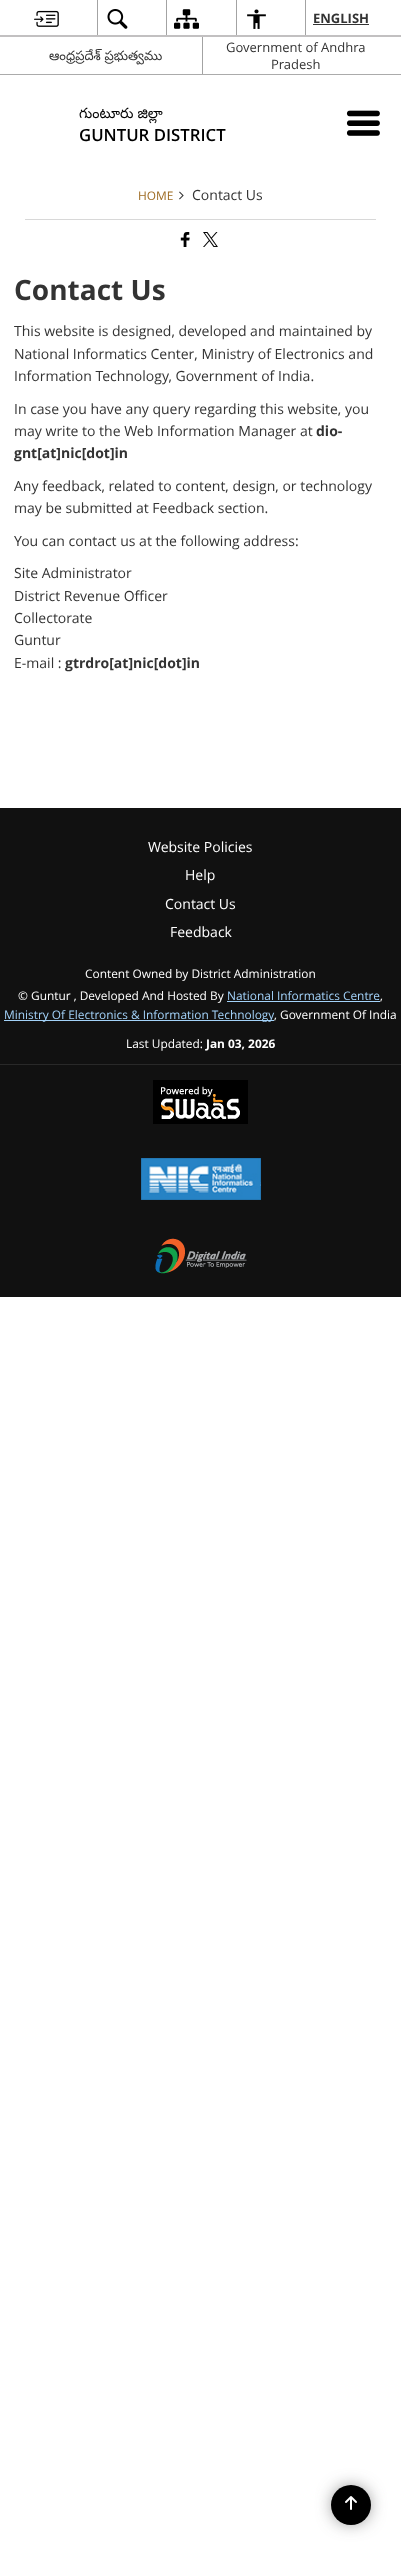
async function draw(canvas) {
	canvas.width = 401;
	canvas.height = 2555;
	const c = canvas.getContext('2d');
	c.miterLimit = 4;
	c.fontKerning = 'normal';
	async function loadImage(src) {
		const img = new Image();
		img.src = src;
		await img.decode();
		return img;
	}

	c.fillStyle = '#fff';
	c.fillRect(0, 0, 401, 2555);
	c.fillStyle = '#ababab';
	c.fillRect(0, 74, 401, 1);
	c.drawImage(await loadImage('img1.png'), 34, 10, 25, 17);
	c.fillStyle = '#a3a3a3';
	c.fillRect(97, 0, 1, 37);
	c.drawImage(await loadImage('img2.png'), 107, 9, 21, 20);
	c.fillRect(166, 0, 1, 37);
	c.drawImage(await loadImage('img3.png'), 174, 9, 25, 20);
	c.fillRect(236, 0, 1, 37);
	c.drawImage(await loadImage('img4.png'), 247, 9, 19, 20);
	c.fillRect(305, 0, 1, 37);
	c.font = 'bold 13px Open Sans';
	c.fillStyle = '#333';
	c.fillText('ENGLISH', 313, 23);
	c.fillRect(313, 24, 56, 1);
	c.font = '13px Noto Sans Telugu';
	c.fillText('ఆంధ్రప్రదేశ్ ప్రభుత్వము', 49, 60);
	c.fillStyle = '#a3a3a3';
	c.fillRect(202, 37, 1, 37);
	c.font = '13px Open Sans';
	c.fillStyle = '#333';
	c.fillText('Government of Andhra', 226, 52);
	c.fillText('Pradesh', 271, 69);
	c.fillStyle = '#c2c0c1';
	c.fillRect(0, 35, 401, 2);
	c.font = '14.25px Noto Sans Telugu';
	c.fillStyle = '#000';
	c.fillText('గుంటూరు జిల్లా', 79, 118);
	c.font = '600 16.75px Open Sans';
	c.fillText('GUNTUR DISTRICT', 79, 141);
	c.drawImage(await loadImage('img5.png'), 346, 110, 34, 26);
	c.fillStyle = '#d8d8d8';
	c.fillRect(25, 219, 351, 1);
	c.font = '11.9px Open Sans';
	c.fillStyle = '#9e6b22';
	c.fillText('HOME', 138, 200);
	c.drawImage(await loadImage('img6.png'), 179, 191, 5, 9);
	c.font = '14px Open Sans';
	c.fillStyle = '#333';
	c.fillText('Contact Us', 192, 200);
	c.drawImage(await loadImage('img7.png'), 180, 232, 10, 15);
	c.drawImage(await loadImage('img8.png'), 203, 232, 15, 15);
	c.font = 'bold 28px Open Sans';
	c.fillText('Contact Us', 14, 300);
	c.font = '14px Open Sans';
	for (const [text, x, y] of [
		['This website is designed, developed and maintained by', 14, 336],
		['National Informatics Center, Ministry of Electronics and', 14, 359],
		['Information Technology, Government of India.', 14, 381],
		['In case you have any query regarding this website, you', 14, 414],
		['may write to the Web Information Manager at', 14, 436],
	]) {
		c.fillText(text, x, y);
	}
	c.font = 'bold 14px Open Sans';
	c.fillText('dio-', 316, 436);
	c.fillText('gnt[at]nic[dot]in', 14, 458);
	c.font = '14px Open Sans';
	for (const [text, x, y] of [
		['Any feedback, related to content, design, or technology', 14, 491],
		['may be submitted at Feedback section.', 14, 513],
		['You can contact us at the following address:', 14, 546],
		['Site Administrator', 14, 578],
		['District Revenue Officer', 14, 601],
		['Collectorate', 14, 623],
		['Guntur', 14, 645],
		['E-mail :', 14, 668],
	]) {
		c.fillText(text, x, y);
	}
	c.font = 'bold 14px Open Sans';
	c.fillText('gtrdro[at]nic[dot]in', 65, 668);
	c.fillStyle = '#111';
	c.fillRect(0, 808, 401, 489);
	c.font = '14px Open Sans';
	c.fillStyle = '#fff';
	for (const [text, x, y] of [
		['Website Policies', 148, 852],
		['Help', 185, 880],
		['Contact Us', 165, 909],
		['Feedback', 170, 937],
	]) {
		c.fillText(text, x, y);
	}
	c.font = '11.9px Open Sans';
	c.fillText('Content Owned by District Administration', 85, 978);
	c.fillText('© Guntur , Developed And Hosted By', 18, 1000);
	c.fillStyle = '#a3d2f9';
	c.fillText('National Informatics Centre', 227, 1000);
	c.fillRect(227, 1001, 153, 1);
	c.fillStyle = '#fff';
	c.fillText(',', 380, 1000);
	c.fillStyle = '#a3d2f9';
	c.fillRect(4, 1020, 270, 1);
	c.fillText('Ministry Of Electronics & Information Technology', 4, 1019);
	c.fillStyle = '#fff';
	c.fillText(', Government Of India', 274, 1019);
	c.fillText('Last Updated:', 126, 1048);
	c.font = 'bold 11.9px Open Sans';
	c.fillText('Jan 03, 2026', 206, 1048);
	c.fillStyle = '#292929';
	c.fillRect(0, 1064, 401, 1);
	c.drawImage(await loadImage('img9.png'), 153, 1080, 95, 44);
	c.drawImage(await loadImage('img10.png'), 141, 1158, 120, 42);
	c.drawImage(await loadImage('img11.png'), 155, 1238, 92, 36);
	c.fillStyle = '#3c3c3c';
	c.filter = 'blur(9.5px)';
	c.beginPath();
	c.roundRect(336, 2490, 30, 30, 15);
	c.fill();
	c.filter = 'none';
	c.fillStyle = '#000';
	c.beginPath();
	c.arc(351, 2505, 20, 0, 2 * Math.PI);
	c.fill();
	c.drawImage(await loadImage('img12.png'), 345, 2496, 12, 14);
}

draw(document.querySelector('canvas'));
